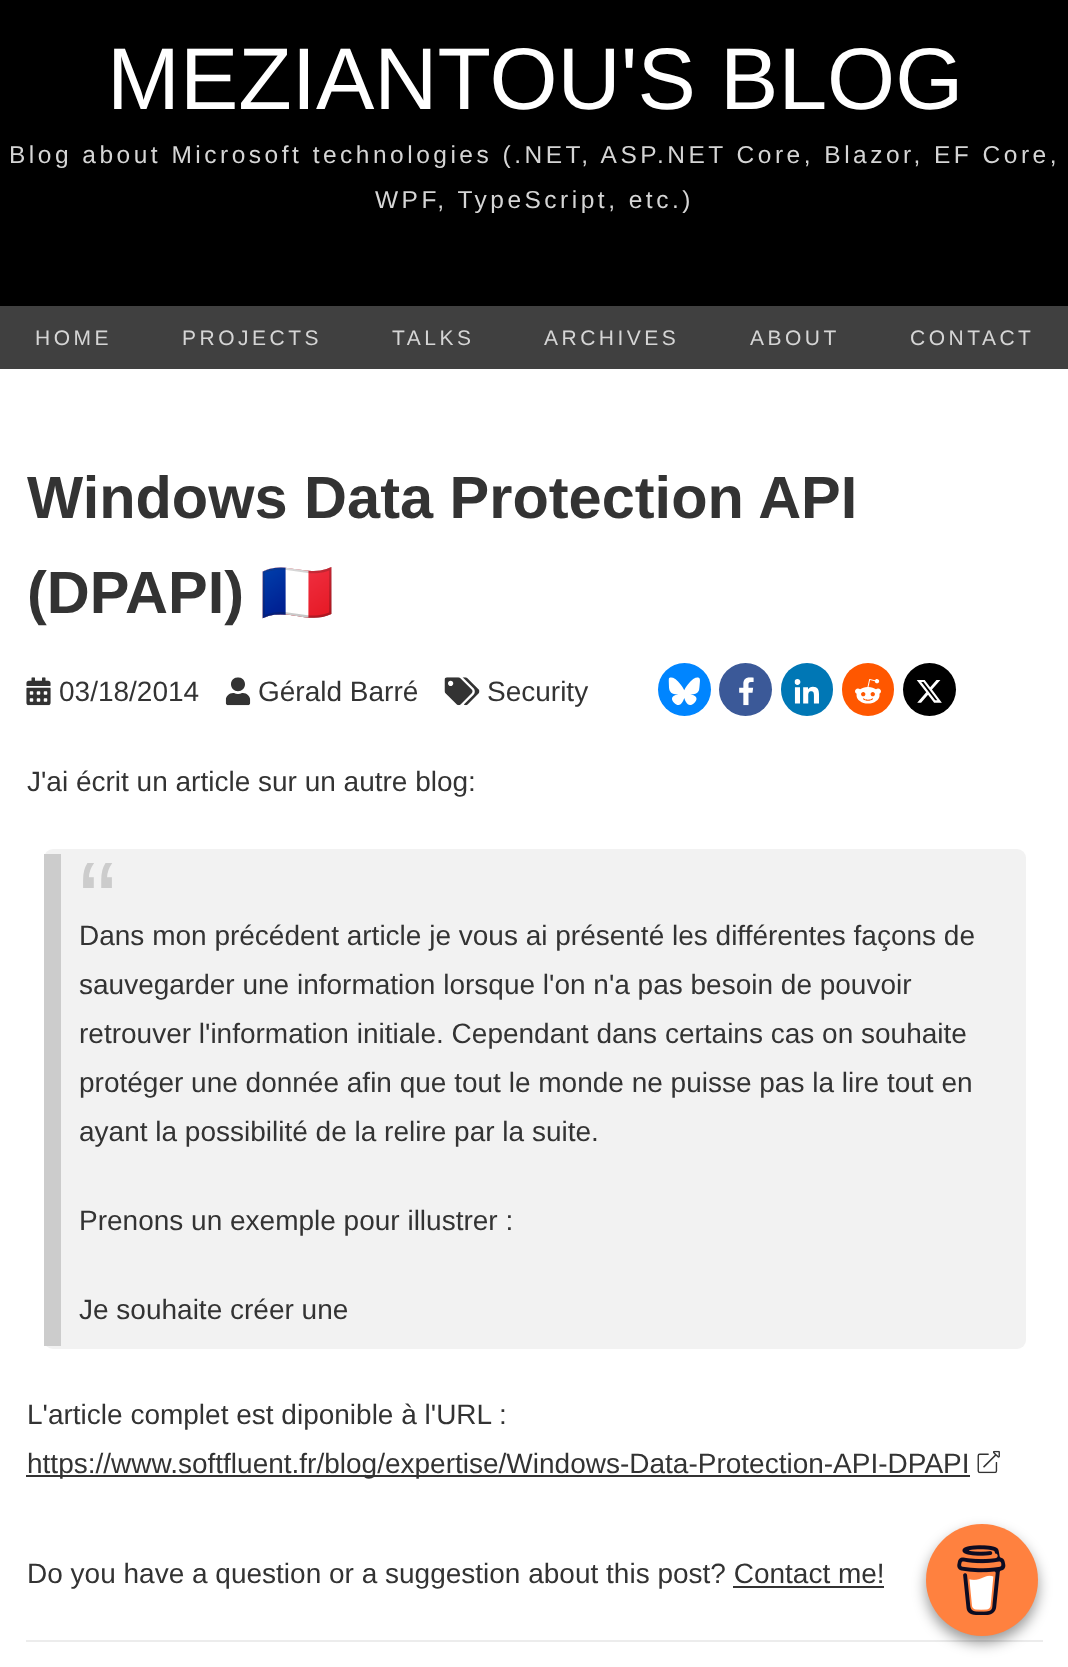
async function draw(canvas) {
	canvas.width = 1068;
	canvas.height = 1667;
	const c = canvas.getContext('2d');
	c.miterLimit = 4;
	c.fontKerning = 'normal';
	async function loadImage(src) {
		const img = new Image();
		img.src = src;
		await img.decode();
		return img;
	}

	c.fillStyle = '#fff';
	c.fillRect(0, 0, 1068, 1667);
	c.fillStyle = '#000';
	c.fillRect(0, 0, 1068, 306);
	c.font = '87.5px Liberation Sans';
	c.fillStyle = '#fff';
	c.fillText('MEZIANTOU\'S BLOG', 107, 109);
	c.letterSpacing = '3.5px';
	c.font = '24.5px Liberation Sans';
	c.fillStyle = '#d5d5d5';
	c.fillText('Blog about Microsoft technologies (.NET, ASP.NET Core, Blazor, EF Core,', 9, 163);
	c.fillText('WPF, TypeScript, etc.)', 375, 208);
	c.fillStyle = '#404040';
	c.fillRect(0, 306, 1068, 63);
	c.font = '21px Liberation Sans';
	c.fillStyle = '#d5d5d5';
	for (const [text, x, y] of [
		['HOME', 35, 345],
		['PROJECTS', 182, 345],
		['TALKS', 392, 345],
		['ARCHIVES', 544, 345],
		['ABOUT', 750, 345],
		['CONTACT', 910, 345],
	]) {
		c.fillText(text, x, y);
	}
	c.letterSpacing = '0px';
	c.font = 'bold 59.5px Liberation Sans';
	c.fillStyle = '#333';
	c.fillText('Windows Data Protection API', 27, 518);
	c.fillText('(DPAPI)', 27, 613);
	c.font = 'bold 59.5px Noto Color Emoji';
	c.fillText('🇫🇷', 260, 613);
	c.drawImage(await loadImage('img1.png'), 26, 677, 25, 29);
	c.font = '28px Liberation Sans';
	c.fillText('03/18/2014', 59, 701);
	c.drawImage(await loadImage('img2.png'), 225, 677, 26, 29);
	c.fillText('Gérald Barré', 258, 701);
	c.drawImage(await loadImage('img3.png'), 444, 677, 36, 29);
	c.fillText('Security', 487, 701);
	c.fillStyle = '#0085ff';
	c.beginPath();
	c.arc(684.5, 689.5, 26.5, 0, 2 * Math.PI);
	c.fill();
	c.drawImage(await loadImage('img4.png'), 668, 677, 32, 28);
	c.fillStyle = '#3b5998';
	c.beginPath();
	c.arc(745.5, 689.5, 26.5, 0, 2 * Math.PI);
	c.fill();
	c.drawImage(await loadImage('img5.png'), 739, 677, 15, 29);
	c.fillStyle = '#0077b5';
	c.beginPath();
	c.roundRect(781, 663, 52, 53, 26);
	c.fill();
	c.drawImage(await loadImage('img6.png'), 794, 679, 25, 25);
	c.fillStyle = '#ff5700';
	c.beginPath();
	c.roundRect(842, 663, 52, 53, 26);
	c.fill();
	c.drawImage(await loadImage('img7.png'), 855, 679, 26, 25);
	c.fillStyle = '#000';
	c.beginPath();
	c.arc(929.5, 689.5, 26.5, 0, 2 * Math.PI);
	c.fill();
	c.drawImage(await loadImage('img8.png'), 916, 680, 26, 23);
	c.fillStyle = '#333';
	c.fillText('J\'ai écrit un article sur un autre blog:', 27, 791);
	c.fillStyle = '#f2f2f2';
	c.beginPath();
	c.roundRect(44, 849, 982, 500, 9);
	c.fill();
	c.fillStyle = '#ccc';
	c.fillRect(44, 854, 17, 492);
	c.font = '112px Liberation Sans';
	c.fillText('“', 79, 940);
	c.font = '28px Liberation Sans';
	c.fillStyle = '#333';
	for (const [text, x, y] of [
		['Dans mon précédent article je vous ai présenté les différentes façons de', 79, 945],
		['sauvegarder une information lorsque l\'on n\'a pas besoin de pouvoir', 79, 994],
		['retrouver l\'information initiale. Cependant dans certains cas on souhaite', 79, 1043],
		['protéger une donnée afin que tout le monde ne puisse pas la lire tout en', 79, 1092],
		['ayant la possibilité de la relire par la suite.', 79, 1141],
		['Prenons un exemple pour illustrer :', 79, 1230],
		['Je souhaite créer une', 79, 1319],
		['L\'article complet est diponible à l\'URL :', 27, 1424],
	]) {
		c.fillText(text, x, y);
	}
	c.fillRect(26, 1475, 944, 2);
	c.fillText('https://www.softfluent.fr/blog/expertise/Windows-Data-Protection-API-DPAPI', 27, 1473);
	c.drawImage(await loadImage('img9.png'), 977, 1450, 23, 24);
	c.fillText('Do you have a question or a suggestion about this post? Contact me!', 27, 1583);
	c.fillRect(733, 1586, 151, 2);
	c.fillStyle = '#ececec';
	c.fillRect(26, 1640, 1017, 2);
	c.fillStyle = '#00000066';
	c.filter = 'blur(7px)';
	c.beginPath();
	c.roundRect(926, 1531, 112, 112, 56);
	c.fill();
	c.filter = 'none';
	c.fillStyle = '#ff813f';
	c.beginPath();
	c.arc(982, 1580, 56, 0, 2 * Math.PI);
	c.fill();
	c.drawImage(await loadImage('img10.png'), 957, 1545, 49, 70);
}

draw(document.querySelector('canvas'));
